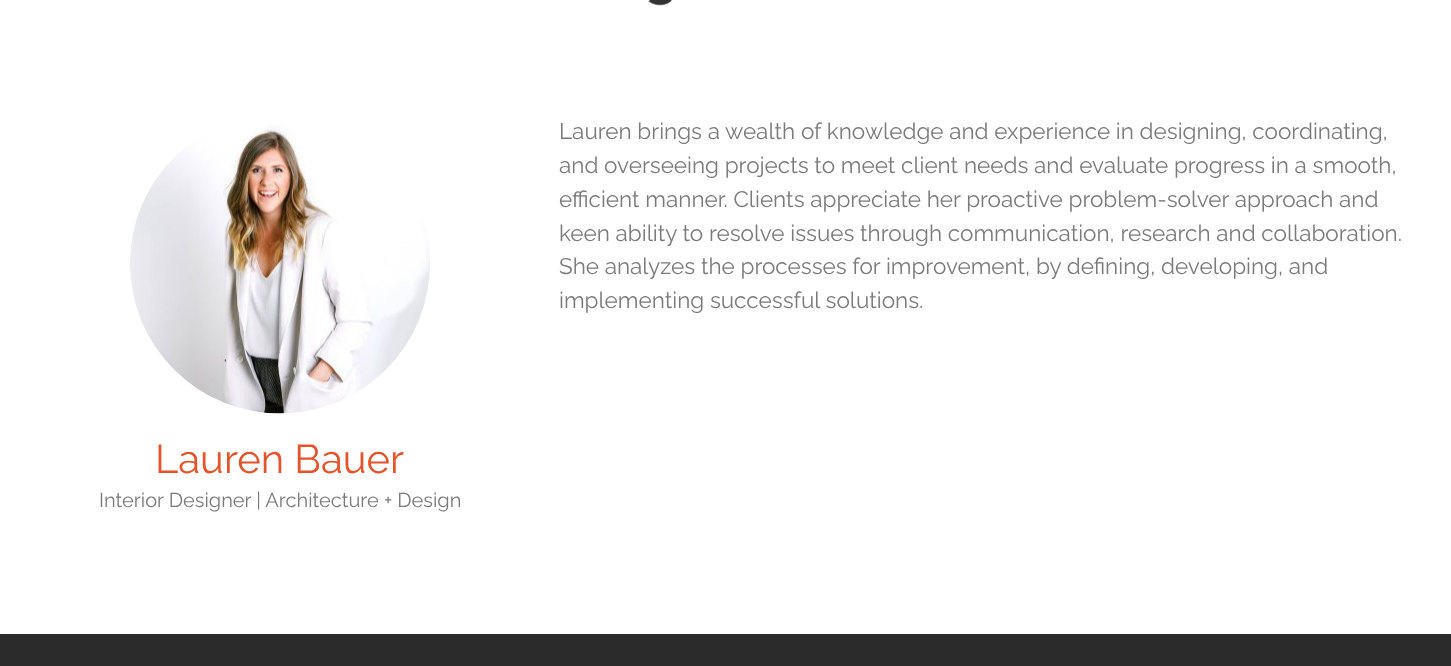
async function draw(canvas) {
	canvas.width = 1451;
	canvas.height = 666;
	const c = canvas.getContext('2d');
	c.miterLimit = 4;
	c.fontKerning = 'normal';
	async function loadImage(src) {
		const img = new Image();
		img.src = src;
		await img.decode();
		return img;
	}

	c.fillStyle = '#fff';
	c.fillRect(0, 0, 1451, 666);
	c.drawImage(await loadImage('img1.png'), 648, 0, 24, 6);
	c.font = '22.5px Raleway';
	c.fillStyle = '#7a7a7a';
	for (const [text, x, y] of [
		['Lauren brings a wealth of knowledge and experience in designing, coordinating,', 559, 139],
		['and overseeing projects to meet client needs and evaluate progress in a smooth,', 559, 173],
		['efficient manner. Clients appreciate her proactive problem-solver approach and', 559, 207],
		['keen ability to resolve issues through communication, research and collaboration.', 559, 241],
		['She analyzes the processes for improvement, by defining, developing, and', 559, 274],
		['implementing successful solutions.', 559, 308],
	]) {
		c.fillText(text, x, y);
	}
	c.drawImage(await loadImage('img2.png'), 130, 125, 300, 289);
	c.font = '40px Raleway';
	c.fillStyle = '#e4542a';
	c.fillText('Lauren Bauer', 155, 473);
	c.font = '20px Raleway';
	c.fillStyle = '#7a7a7a';
	c.fillText('Interior Designer | Architecture + Design', 99, 507);
	c.fillStyle = '#2b2b2b';
	c.fillRect(0, 634, 1451, 32);
}

draw(document.querySelector('canvas'));
